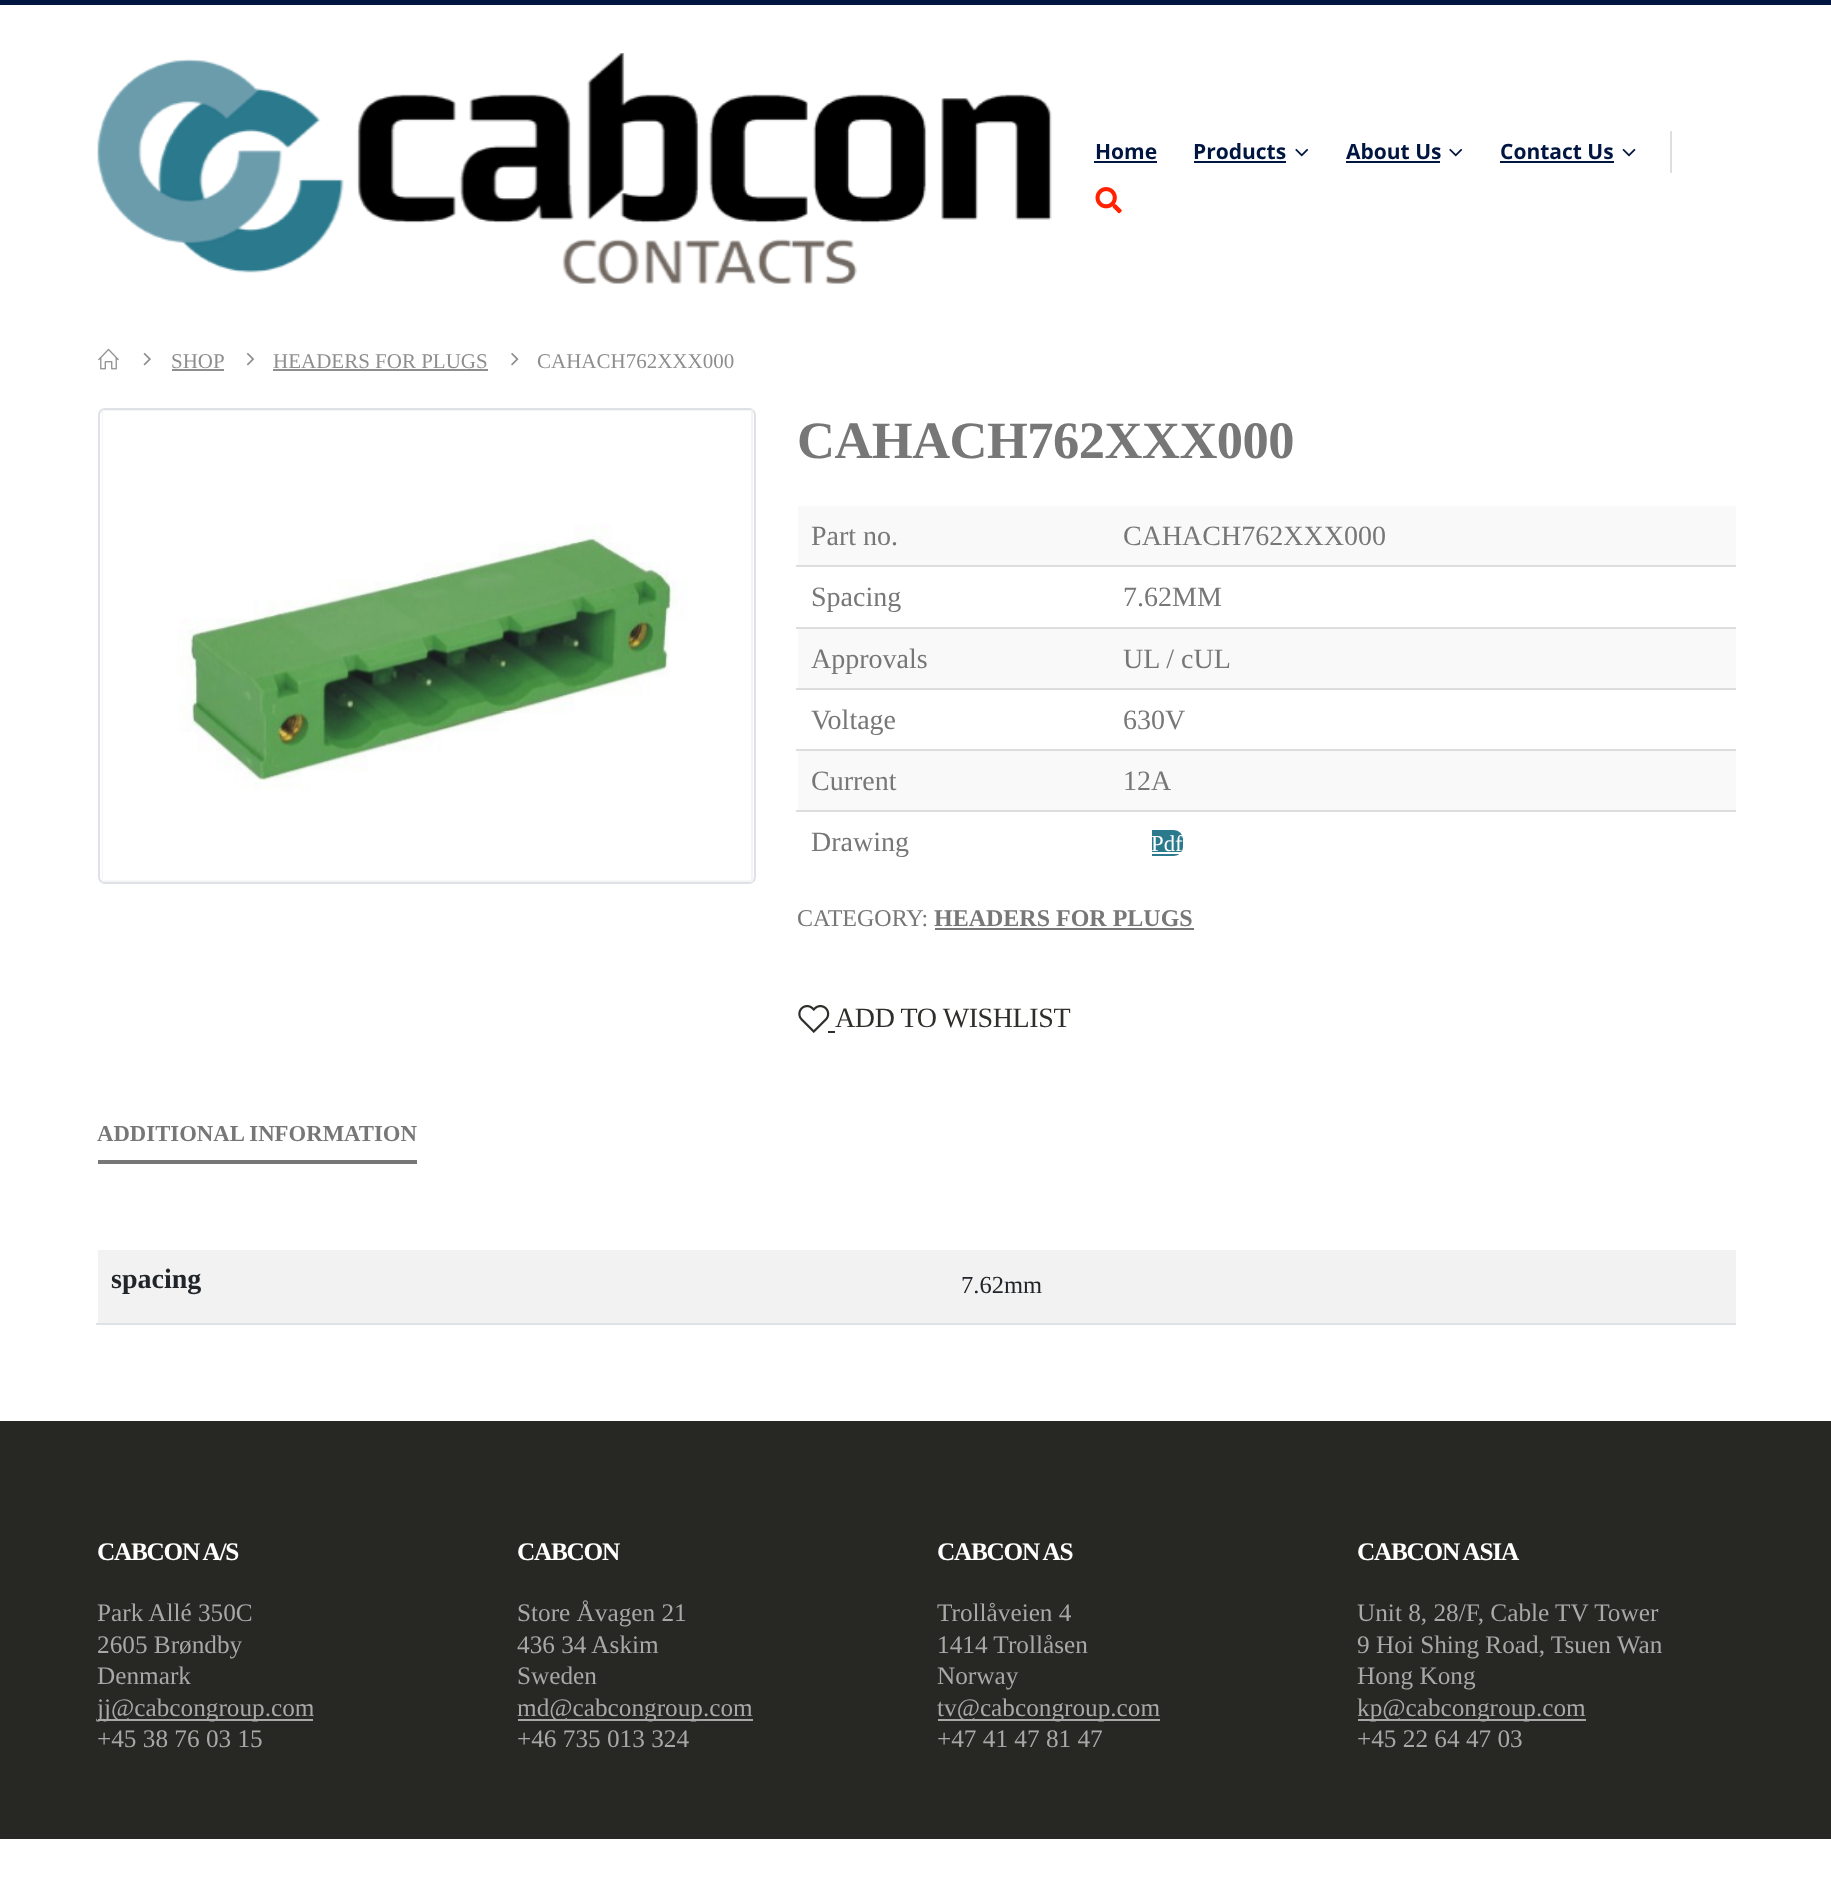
async function draw(canvas) {
	canvas.width = 1831;
	canvas.height = 1904;
	const c = canvas.getContext('2d');
	c.miterLimit = 4;
	c.fontKerning = 'normal';
	async function loadImage(src) {
		const img = new Image();
		img.src = src;
		await img.decode();
		return img;
	}

	c.fillStyle = '#fff';
	c.fillRect(0, 0, 1831, 1904);
	c.fillStyle = '#001540';
	c.fillRect(0, 0, 1831, 5);
	c.drawImage(await loadImage('img1.png'), 97, 53, 955, 231);
	c.font = 'bold 21px Open Sans';
	c.fillText('Home', 1095, 159);
	c.fillRect(1094, 161, 63, 2);
	c.fillText('Products', 1193, 159);
	c.fillRect(1194, 161, 92, 2);
	c.drawImage(await loadImage('img2.png'), 1295, 148, 14, 9);
	c.fillText('About Us', 1346, 159);
	c.fillRect(1346, 161, 94, 2);
	c.drawImage(await loadImage('img2.png'), 1449, 148, 14, 9);
	c.fillText('Contact Us', 1500, 159);
	c.fillRect(1500, 161, 114, 2);
	c.drawImage(await loadImage('img3.png'), 1622, 148, 14, 9);
	c.fillStyle = '#dde0e2';
	c.fillRect(1670, 131, 2, 42);
	c.drawImage(await loadImage('img4.png'), 1095, 187, 27, 27);
	c.drawImage(await loadImage('img5.png'), 98, 348, 21, 22);
	c.drawImage(await loadImage('img6.png'), 143, 352, 8, 14);
	c.font = '21px Liberation Serif';
	c.fillStyle = '#8e8e8e';
	c.fillText('SHOP', 171, 368);
	c.fillRect(172, 369, 52, 2);
	c.drawImage(await loadImage('img7.png'), 246, 352, 9, 14);
	c.fillText('HEADERS FOR PLUGS', 273, 368);
	c.fillRect(273, 369, 215, 2);
	c.drawImage(await loadImage('img8.png'), 511, 352, 8, 14);
	c.fillText('CAHACH762XXX000', 537, 368);
	c.beginPath();
	c.roundRect(99, 409, 656, 474, 6);
	c.strokeStyle = '#dee2e6';
	c.lineWidth = 2;
	c.stroke();
	c.strokeStyle = '#f4f4f4';
	c.strokeRect(103, 411, 649, 470);
	c.drawImage(await loadImage('img9.png'), 103, 411, 648, 470);
	c.letterSpacing = '-0.5px';
	c.font = 'bold 52.5px Liberation Serif';
	c.fillStyle = '#777';
	c.fillText('CAHACH762XXX000', 797, 458);
	c.fillStyle = '#f9f9f9';
	c.fillRect(798, 506, 938, 59);
	c.letterSpacing = '0px';
	c.font = '28px Liberation Serif';
	c.fillStyle = '#777';
	for (const [text, x, y] of [
		['Part no.', 811, 545],
		['CAHACH762XXX000', 1123, 545],
		['Spacing', 811, 606],
	]) {
		c.fillText(text, x, y);
	}
	c.fillStyle = '#ddd';
	c.fillRect(796, 565, 940, 2);
	c.fillStyle = '#777';
	c.fillText('7.62MM', 1123, 606);
	c.fillStyle = '#f9f9f9';
	c.fillRect(798, 629, 938, 59);
	c.fillStyle = '#777';
	c.fillText('Approvals', 811, 668);
	c.fillStyle = '#ddd';
	c.fillRect(796, 627, 940, 2);
	c.fillStyle = '#777';
	c.fillText('UL / cUL', 1123, 668);
	c.fillText('Voltage', 811, 729);
	c.fillStyle = '#ddd';
	c.fillRect(796, 688, 940, 2);
	c.fillStyle = '#777';
	c.fillText('630V', 1123, 729);
	c.fillStyle = '#f9f9f9';
	c.fillRect(798, 751, 938, 59);
	c.fillStyle = '#777';
	c.fillText('Current', 811, 790);
	c.fillStyle = '#ddd';
	c.fillRect(796, 749, 940, 2);
	c.fillStyle = '#777';
	c.fillText('12A', 1123, 790);
	c.fillText('Drawing', 811, 851);
	c.fillStyle = '#ddd';
	c.fillRect(796, 810, 940, 2);
	c.fillStyle = '#2b798d';
	c.beginPath();
	c.roundRect(1152, 830, 31, 26, [0, 9, 9, 0]);
	c.fill();
	c.font = '22.75px Liberation Serif';
	c.fillStyle = '#fff';
	c.fillText('Pdf', 1151, 851);
	c.fillRect(1152, 852, 31, 2);
	c.font = '24px Liberation Serif';
	c.fillStyle = '#777';
	c.fillText('CATEGORY:', 797, 926);
	c.font = 'bold 24px Liberation Serif';
	c.fillText('HEADERS FOR PLUGS', 934, 926);
	c.fillRect(935, 928, 259, 2);
	c.fillStyle = '#302e2a';
	c.fillRect(828, 1031, 7, 2);
	c.drawImage(await loadImage('img10.png'), 798, 1005, 32, 28);
	c.letterSpacing = '-0.4px';
	c.font = '28px Liberation Serif';
	c.fillText('ADD TO WISHLIST', 835, 1027);
	c.fillStyle = '#777';
	c.fillRect(98, 1160, 319, 4);
	c.letterSpacing = '0px';
	c.font = 'bold 22.75px Liberation Serif';
	c.fillText('ADDITIONAL INFORMATION', 97, 1141);
	c.fillStyle = '#f2f2f2';
	c.fillRect(98, 1250, 1638, 73);
	c.font = 'bold 28px Liberation Serif';
	c.fillStyle = '#212529';
	c.fillText('spacing', 111, 1288);
	c.fillStyle = '#dee2e6';
	c.fillRect(96, 1323, 1640, 2);
	c.font = '24.5px Liberation Serif';
	c.fillStyle = '#212529';
	c.fillText('7.62mm', 961, 1293);
	c.fillStyle = '#272723';
	c.fillRect(0, 1421, 1831, 418);
	c.letterSpacing = '-1.25px';
	c.font = 'bold 25.25px Liberation Serif';
	c.fillStyle = '#fff';
	c.fillText('CABCON A/S', 97, 1560);
	c.letterSpacing = '0px';
	c.font = '25.25px Liberation Serif';
	c.fillStyle = '#a8a8a8';
	for (const [text, x, y] of [
		['Park Allé 350C', 97, 1621],
		['2605 Brøndby', 97, 1653],
		['Denmark', 97, 1684],
	]) {
		c.fillText(text, x, y);
	}
	c.fillRect(98, 1719, 215, 2);
	c.fillText('jj@cabcongroup.com', 97, 1716);
	c.fillText('+45 38 76 03 15', 97, 1747);
	c.letterSpacing = '-1.25px';
	c.font = 'bold 25.25px Liberation Serif';
	c.fillStyle = '#fff';
	c.fillText('CABCON', 517, 1560);
	c.letterSpacing = '0px';
	c.font = '25.25px Liberation Serif';
	c.fillStyle = '#a8a8a8';
	for (const [text, x, y] of [
		['Store Åvagen 21', 517, 1621],
		['436 34 Askim', 517, 1653],
		['Sweden', 517, 1684],
	]) {
		c.fillText(text, x, y);
	}
	c.fillRect(518, 1719, 235, 2);
	c.fillText('md@cabcongroup.com', 517, 1716);
	c.fillText('+46 735 013 324', 517, 1747);
	c.letterSpacing = '-1.25px';
	c.font = 'bold 25.25px Liberation Serif';
	c.fillStyle = '#fff';
	c.fillText('CABCON AS', 937, 1560);
	c.letterSpacing = '0px';
	c.font = '25.25px Liberation Serif';
	c.fillStyle = '#a8a8a8';
	for (const [text, x, y] of [
		['Trollåveien 4', 937, 1621],
		['1414 Trollåsen', 937, 1653],
		['Norway', 937, 1684],
	]) {
		c.fillText(text, x, y);
	}
	c.fillRect(938, 1719, 222, 2);
	c.fillText('tv@cabcongroup.com', 937, 1716);
	c.fillText('+47 41 47 81 47', 937, 1747);
	c.letterSpacing = '-1.25px';
	c.font = 'bold 25.25px Liberation Serif';
	c.fillStyle = '#fff';
	c.fillText('CABCON ASIA', 1357, 1560);
	c.letterSpacing = '0px';
	c.font = '25.25px Liberation Serif';
	c.fillStyle = '#a8a8a8';
	for (const [text, x, y] of [
		['Unit 8, 28/F, Cable TV Tower', 1357, 1621],
		['9 Hoi Shing Road, Tsuen Wan', 1357, 1653],
		['Hong Kong', 1357, 1684],
	]) {
		c.fillText(text, x, y);
	}
	c.fillRect(1358, 1719, 228, 2);
	c.fillText('kp@cabcongroup.com', 1357, 1716);
	c.fillText('+45 22 64 47 03', 1357, 1747);
}

draw(document.querySelector('canvas'));
